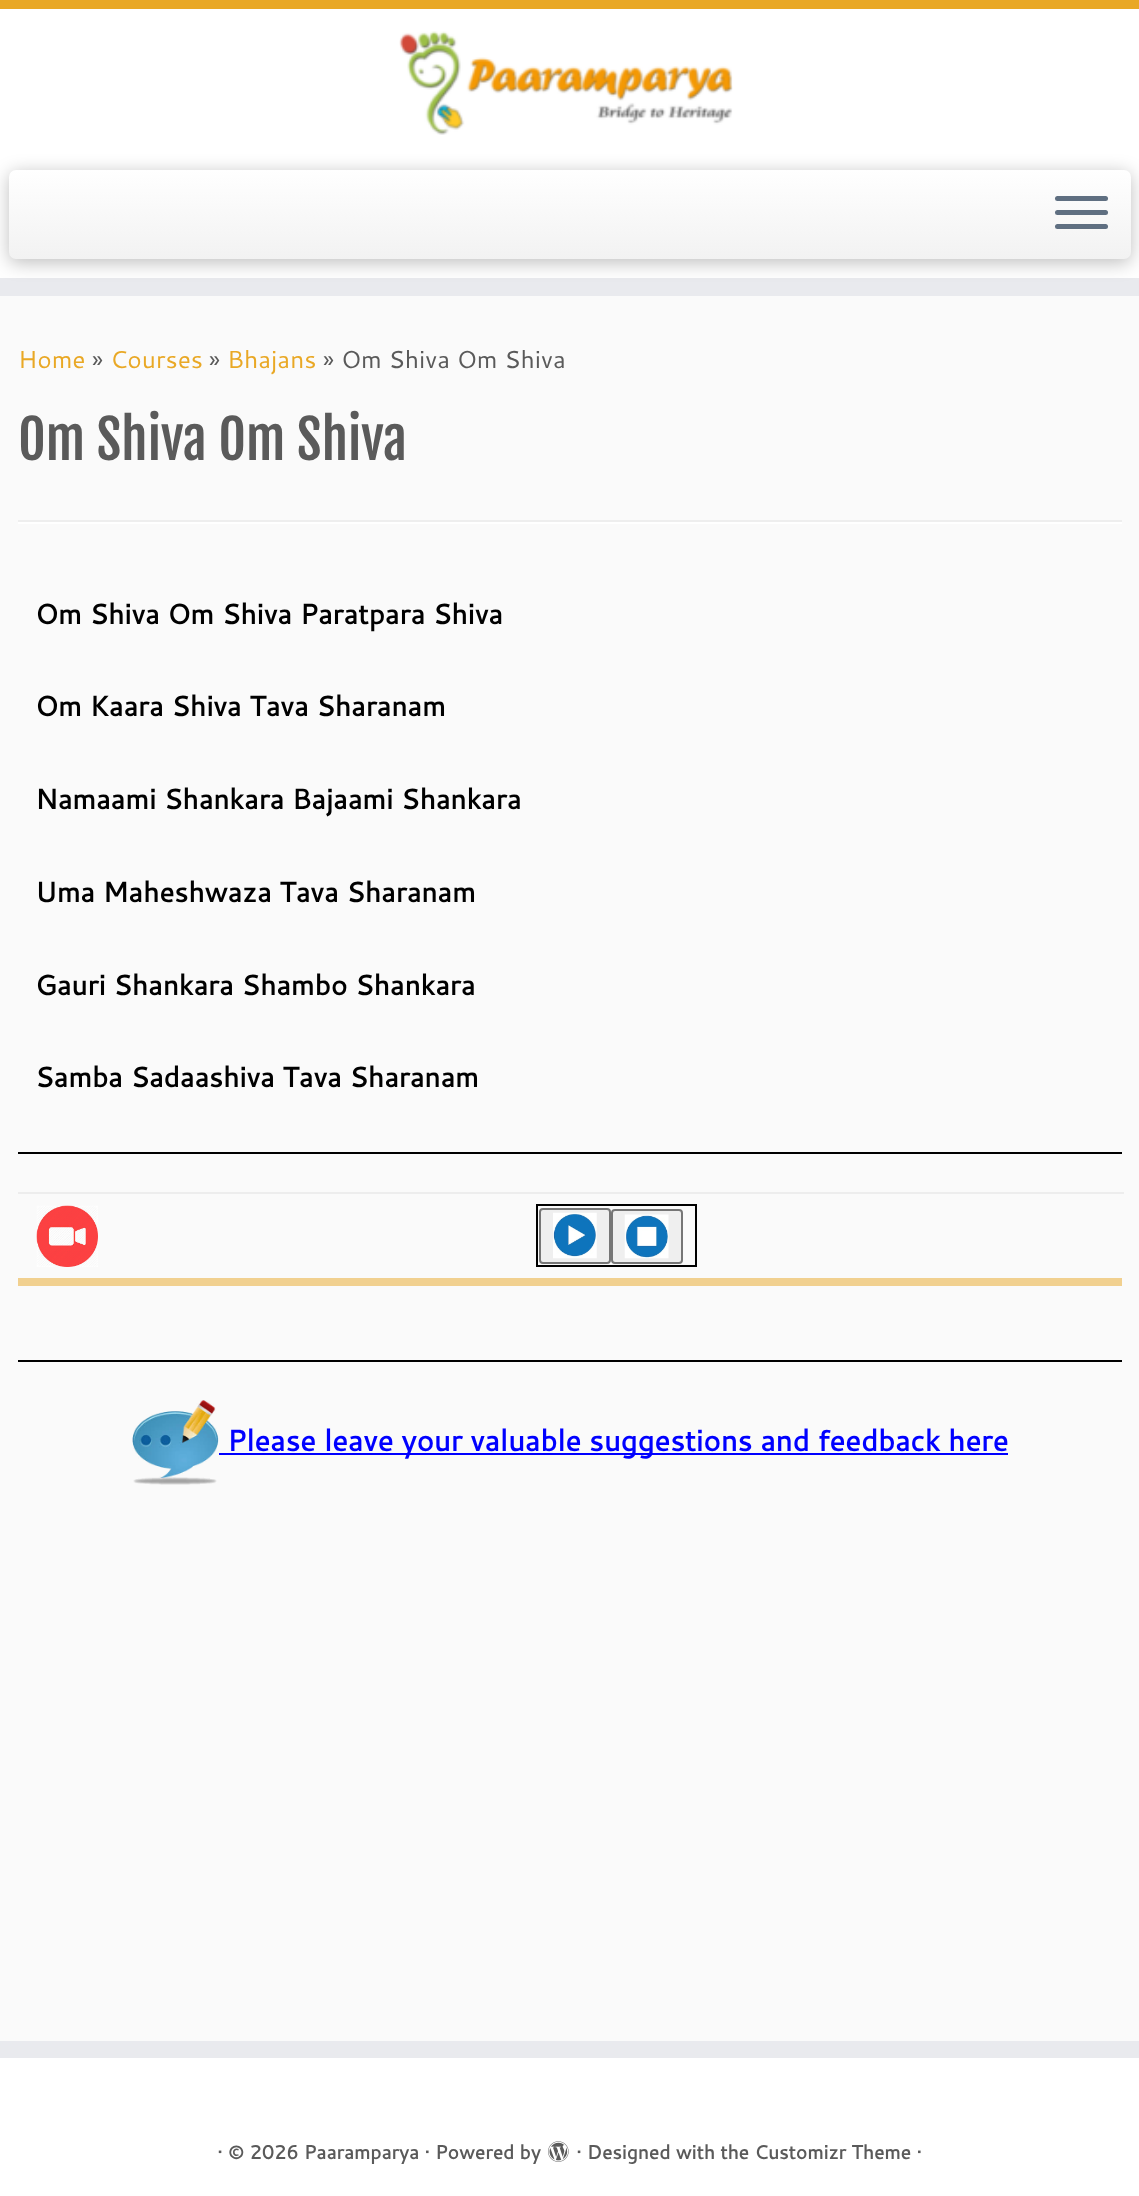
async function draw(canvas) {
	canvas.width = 1139;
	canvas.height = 2196;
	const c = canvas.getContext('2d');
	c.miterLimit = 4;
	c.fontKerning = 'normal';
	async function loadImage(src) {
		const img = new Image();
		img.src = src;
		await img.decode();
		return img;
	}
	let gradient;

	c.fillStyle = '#fafafa';
	c.fillRect(0, 0, 1139, 2196);
	for (const [x, y, w, h, color] of [
		[0, 9, 1139, 269, '#fff'],
		[0, 0, 1139, 9, '#e9a825'],
		[0, 278, 1139, 18, '#e9eaee'],
	]) {
		c.fillStyle = color;
		c.fillRect(x, y, w, h);
	}
	c.drawImage(await loadImage('img1.png'), 399, 31, 334, 104);
	c.fillStyle = '#00000040';
	c.filter = 'blur(9px)';
	c.beginPath();
	c.roundRect(9, 173, 1122, 90, 7);
	c.fill();
	c.filter = 'none';
	gradient = c.createLinearGradient(570, 170, 570, 259);
	gradient.addColorStop(0, '#fff');
	gradient.addColorStop(1, '#f2f2f2');
	c.fillStyle = gradient;
	c.beginPath();
	c.roundRect(9, 170, 1122, 89, 7);
	c.fill();
	c.fillStyle = '#5f6f81';
	c.beginPath();
	c.roundRect(1055, 196, 53, 5, 2.5);
	c.fill();
	c.beginPath();
	c.roundRect(1055, 210, 53, 5, 2.5);
	c.fill();
	c.beginPath();
	c.roundRect(1055, 224, 53, 5, 2.5);
	c.fill();
	c.font = '24.5px Cantarell';
	c.fillStyle = '#e9a825';
	c.fillText('Home', 18, 368);
	c.fillStyle = '#5a5a5a';
	c.fillText('»', 92, 368);
	c.fillStyle = '#e9a825';
	c.fillText('Courses', 110, 368);
	c.fillStyle = '#5a5a5a';
	c.fillText('»', 209, 368);
	c.fillStyle = '#e9a825';
	c.fillText('Bhajans', 227, 368);
	c.fillStyle = '#5a5a5a';
	c.fillText('» Om Shiva Om Shiva', 323, 368);
	c.font = '53.25px Fjalla One';
	c.fillText('Om Shiva Om Shiva', 18, 460);
	c.fillStyle = '#eee';
	c.fillRect(18, 520, 1104, 2);
	c.fillStyle = '#fff';
	c.fillRect(18, 522, 1104, 2);
	c.font = 'bold 28px Cantarell';
	c.fillStyle = '#000';
	for (const [text, x, y] of [
		['Om Shiva Om Shiva Paratpara Shiva', 35, 624],
		['Om Kaara Shiva Tava Sharanam', 35, 716],
		['Namaami Shankara Bajaami Shankara', 35, 809],
		['Uma Maheshwaza Tava Sharanam', 35, 902],
		['Gauri Shankara Shambo Shankara', 35, 995],
		['Samba Sadaashiva Tava Sharanam', 35, 1087],
	]) {
		c.fillText(text, x, y);
	}
	for (const [x, y, w, h, color] of [
		[18, 1152, 1104, 2, '#000'],
		[18, 1278, 1104, 8, '#f1d08f'],
		[18, 1192, 1106, 2, '#ededed'],
	]) {
		c.fillStyle = color;
		c.fillRect(x, y, w, h);
	}
	c.strokeStyle = '#000';
	c.lineWidth = 2;
	c.strokeRect(537, 1205, 159, 61);
	c.fillStyle = '#efefef';
	c.beginPath();
	c.roundRect(540, 1209, 70, 54, 3);
	c.fill();
	c.strokeStyle = '#767676';
	c.stroke();
	c.drawImage(await loadImage('img2.png'), 553, 1212, 44, 47);
	c.beginPath();
	c.roundRect(612, 1210, 70, 53, 3);
	c.fill();
	c.stroke();
	c.drawImage(await loadImage('img3.png'), 624, 1214, 45, 45);
	c.drawImage(await loadImage('img4.png'), 36, 1205, 62, 62);
	c.fillStyle = '#000';
	c.fillRect(18, 1360, 1104, 2);
	c.drawImage(await loadImage('img5.png'), 131, 1400, 88, 85);
	c.fillStyle = '#00f';
	c.fillRect(219, 1453, 789, 2);
	c.font = 'bold 29.4px Cantarell';
	c.fillText('Please leave your valuable suggestions and feedback here', 227, 1451);
	c.fillStyle = '#e9eaee';
	c.fillRect(0, 2041, 1139, 17);
	c.fillStyle = '#fff';
	c.fillRect(0, 2058, 1139, 138);
	c.font = 'bold 19.25px Cantarell';
	c.fillStyle = '#5a5a5a';
	c.fillText('· © 2026 Paaramparya · Powered by', 217, 2159);
	c.drawImage(await loadImage('img6.png'), 548, 2141, 21, 21);
	c.fillText('· Designed with the Customizr Theme ·', 576, 2159);
}

draw(document.querySelector('canvas'));
